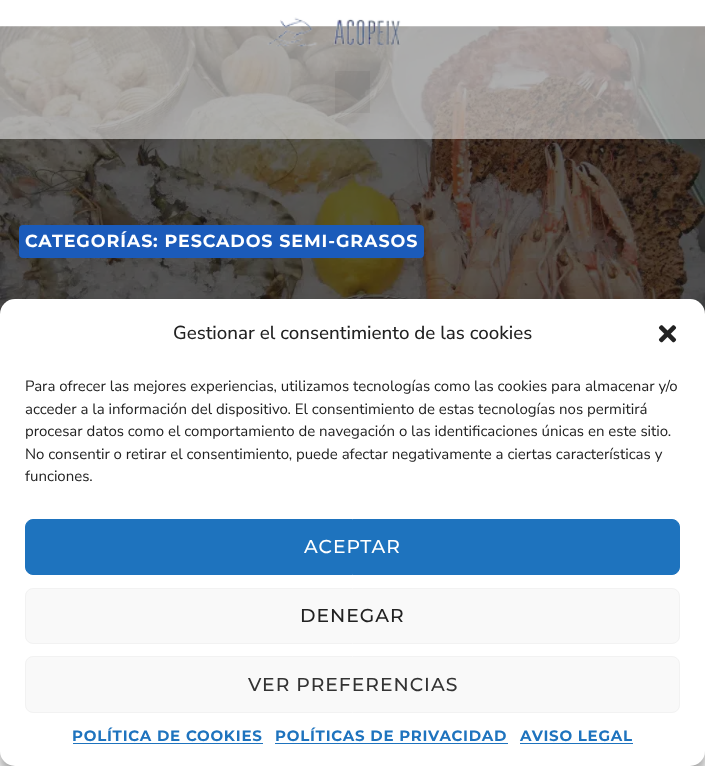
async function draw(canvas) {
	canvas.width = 705;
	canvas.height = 766;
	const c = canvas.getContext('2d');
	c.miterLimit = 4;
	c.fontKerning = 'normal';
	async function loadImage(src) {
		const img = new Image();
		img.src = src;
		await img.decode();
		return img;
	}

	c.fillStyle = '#fff';
	c.fillRect(0, 0, 705, 766);
	c.drawImage(await loadImage('img2.png'), 0, 26, 705, 288);
	c.fillStyle = '#ffffff85';
	c.fillRect(0, 26, 705, 113);
	c.drawImage(await loadImage('img1.png'), 267, 17, 134, 30);
	c.fillStyle = '#0000000d';
	c.fillRect(335, 71, 35, 42);
	c.fillStyle = '#1b5bba';
	c.beginPath();
	c.roundRect(19, 225, 405, 33, 4);
	c.fill();
	c.letterSpacing = '0.9px';
	c.font = 'bold 17.5px Montserrat';
	c.fillStyle = '#fff';
	c.fillText('CATEGORÍAS: PESCADOS SEMI-GRASOS', 25, 247);
	c.fillStyle = '#0000003b';
	c.filter = 'blur(4px)';
	c.beginPath();
	c.roundRect(0, 306, 705, 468, 15);
	c.fill();
	c.filter = 'none';
	c.fillStyle = '#00000030';
	c.filter = 'blur(12.5px)';
	c.beginPath();
	c.roundRect(0, 311, 705, 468, 15);
	c.fill();
	c.filter = 'none';
	c.fillStyle = '#fff';
	c.beginPath();
	c.roundRect(0, 299, 705, 467, 15);
	c.fill();
	c.letterSpacing = '0px';
	c.font = '500 18.75px Nunito Sans';
	c.fillStyle = '#222';
	c.fillText('Gestionar el consentimiento de las cookies', 173, 339);
	c.drawImage(await loadImage('img3.png'), 658, 325, 19, 18);
	c.font = '15px Nunito Sans';
	for (const [text, x, y] of [
		['Para ofrecer las mejores experiencias, utilizamos tecnologías como las cookies para almacenar y/o', 25, 391],
		['acceder a la información del dispositivo. El consentimiento de estas tecnologías nos permitirá', 25, 414],
		['procesar datos como el comportamiento de navegación o las identificaciones únicas en este sitio.', 25, 436],
		['No consentir o retirar el consentimiento, puede afectar negativamente a ciertas características y', 25, 459],
		['funciones.', 25, 481],
	]) {
		c.fillText(text, x, y);
	}
	c.fillStyle = '#1e73be';
	c.beginPath();
	c.roundRect(25.5, 519.5, 654, 55, 7.5);
	c.fill();
	c.strokeStyle = '#1e73be';
	c.stroke();
	c.letterSpacing = '1px';
	c.font = '500 18.75px Montserrat';
	c.fillStyle = '#fff';
	c.fillText('ACEPTAR', 304, 553);
	c.fillStyle = '#f9f9f9';
	c.beginPath();
	c.roundRect(25.5, 588.5, 654, 55, 7.5);
	c.fill();
	c.strokeStyle = '#f2f2f2';
	c.stroke();
	c.fillStyle = '#222';
	c.fillText('DENEGAR', 300, 622);
	c.fillStyle = '#f9f9f9';
	c.beginPath();
	c.roundRect(25.5, 656.5, 654, 56, 7.5);
	c.fill();
	c.stroke();
	c.fillStyle = '#333';
	c.fillText('VER PREFERENCIAS', 248, 691);
	c.letterSpacing = '0.75px';
	c.font = 'bold 15px Montserrat';
	c.fillStyle = '#1e73be';
	c.fillText('POLÍTICA DE COOKIES', 72, 741);
	c.fillRect(73, 743, 190, 1);
	c.fillText('POLÍTICAS DE PRIVACIDAD', 275, 741);
	c.fillRect(275, 743, 233, 1);
	c.fillText('AVISO LEGAL', 520, 741);
	c.fillRect(520, 743, 113, 1);
}

draw(document.querySelector('canvas'));
